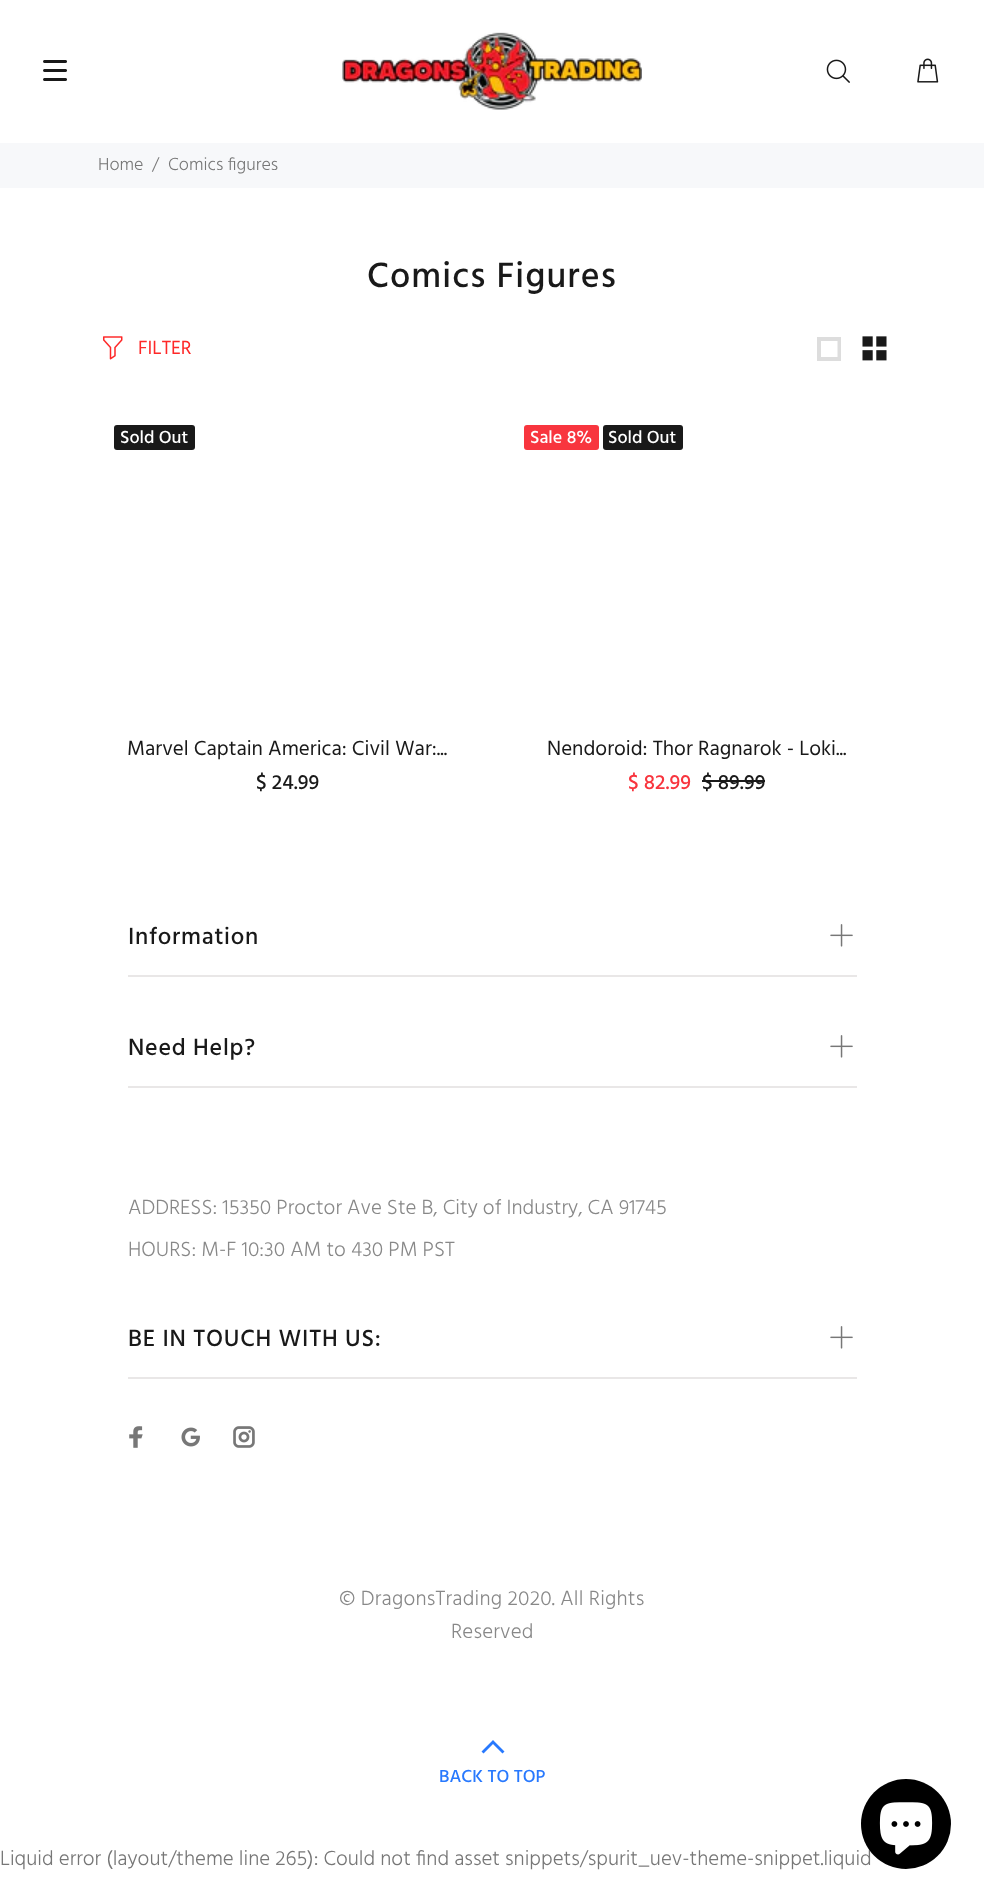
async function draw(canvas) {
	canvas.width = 984;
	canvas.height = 1900;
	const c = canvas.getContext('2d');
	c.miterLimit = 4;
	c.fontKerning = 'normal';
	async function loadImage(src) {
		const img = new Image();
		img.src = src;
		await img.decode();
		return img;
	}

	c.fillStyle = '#fff';
	c.fillRect(0, 0, 984, 1900);
	c.drawImage(await loadImage('img1.png'), 43, 60, 24, 21);
	c.drawImage(await loadImage('img2.png'), 342, 32, 300, 78);
	c.drawImage(await loadImage('img3.png'), 826, 59, 24, 24);
	c.drawImage(await loadImage('img4.png'), 917, 58, 22, 25);
	c.fillStyle = '#f7f8fa';
	c.fillRect(0, 143, 984, 45);
	c.font = '300 18px Hind';
	c.fillStyle = '#777';
	for (const [text, x, y] of [
		['Home', 98, 170],
		['/', 152, 170],
		['Comics figures', 168, 170],
	]) {
		c.fillText(text, x, y);
	}
	c.letterSpacing = '1.1px';
	c.font = '500 36px Hind';
	c.fillStyle = '#191919';
	c.fillText('Comics Figures', 367, 287);
	c.drawImage(await loadImage('img5.png'), 102, 336, 21, 24);
	c.letterSpacing = '0px';
	c.font = '19.5px Hind';
	c.fillStyle = '#fe2828';
	c.fillText('FILTER', 138, 354);
	c.fillStyle = '#ddd';
	c.beginPath();
	c.moveTo(817, 361);
	c.lineTo(817, 337);
	c.lineTo(841, 337);
	c.lineTo(841, 361);
	c.closePath();
	c.moveTo(821, 357);
	c.lineTo(837.5, 357);
	c.lineTo(837.5, 341);
	c.lineTo(821, 341);
	c.closePath();
	c.fill();
	c.drawImage(await loadImage('img6.png'), 862, 336, 25, 25);
	c.fillStyle = '#191919';
	c.beginPath();
	c.roundRect(114, 425, 81, 25, 3);
	c.fill();
	c.font = '500 18px Hind';
	c.fillStyle = '#fff';
	c.fillText('Sold Out', 120, 443);
	c.font = '21px Hind';
	c.fillStyle = '#191919';
	c.fillText('Marvel Captain America: Civil War:...', 127, 755);
	c.font = '500 21px Hind';
	c.fillText('$ 24.99', 256, 789);
	c.fillStyle = '#f8353e';
	c.beginPath();
	c.roundRect(524, 425, 75, 25, 3);
	c.fill();
	c.font = '500 18px Hind';
	c.fillStyle = '#fff';
	c.fillText('Sale 8%', 530, 443);
	c.fillStyle = '#191919';
	c.beginPath();
	c.roundRect(603, 425, 80, 25, 3);
	c.fill();
	c.fillStyle = '#fff';
	c.fillText('Sold Out', 608, 443);
	c.font = '21px Hind';
	c.fillStyle = '#191919';
	c.fillText('Nendoroid: Thor Ragnarok - Loki...', 547, 755);
	c.font = '500 21px Hind';
	c.fillStyle = '#f8353e';
	c.fillText('$ 82.99', 628, 789);
	c.fillStyle = '#191919';
	c.fillText('$ 89.99', 702, 789);
	c.fillRect(702, 780, 63, 2);
	c.fillStyle = '#e9e7e7';
	c.fillRect(128, 975, 729, 2);
	c.letterSpacing = '0.75px';
	c.font = '500 24px Hind';
	c.fillStyle = '#191919';
	c.fillText('Information', 128, 944);
	c.drawImage(await loadImage('img7.png'), 830, 924, 23, 23);
	c.fillStyle = '#e9e7e7';
	c.fillRect(128, 1086, 729, 2);
	c.fillStyle = '#191919';
	c.fillText('Need Help?', 128, 1055);
	c.drawImage(await loadImage('img7.png'), 830, 1035, 23, 23);
	c.letterSpacing = '0px';
	c.font = '300 21px Hind';
	c.fillStyle = '#888';
	c.fillText('ADDRESS: 15350 Proctor Ave Ste B, City of Industry, CA 91745', 128, 1214);
	c.fillText('HOURS: M-F 10:30 AM to 430 PM PST', 128, 1256);
	c.fillStyle = '#e9e7e7';
	c.fillRect(128, 1377, 729, 2);
	c.letterSpacing = '0.75px';
	c.font = '500 24px Hind';
	c.fillStyle = '#191919';
	c.fillText('BE IN TOUCH WITH US:', 128, 1346);
	c.drawImage(await loadImage('img7.png'), 830, 1326, 23, 23);
	c.drawImage(await loadImage('img8.png'), 129, 1426, 14, 22);
	c.drawImage(await loadImage('img9.png'), 181, 1427, 19, 20);
	c.drawImage(await loadImage('img10.png'), 233, 1426, 22, 22);
	c.letterSpacing = '0.2px';
	c.font = '300 21px Hind';
	c.fillStyle = '#888';
	c.fillText('© DragonsTrading 2020. All Rights', 339, 1605);
	c.fillText('Reserved', 451, 1638);
	c.fillStyle = '#2879fe';
	c.beginPath();
	c.moveTo(502.5, 1753.5);
	c.lineTo(493, 1744);
	c.lineTo(483.5, 1753.5);
	c.lineTo(481.5, 1751.5);
	c.lineTo(493, 1740);
	c.lineTo(504.5, 1751.5);
	c.closePath();
	c.fill();
	c.letterSpacing = '0px';
	c.font = '500 18px Hind';
	c.fillText('BACK TO TOP', 439, 1782);
	c.font = '300 21px Hind';
	c.fillStyle = '#777';
	c.fillText('Liquid error (layout/theme line 265): Could not find asset snippets/spurit_uev-theme-snippet.liquid', 0, 1865);
	c.fillStyle = '#000';
	c.beginPath();
	c.arc(906, 1824, 45, 0, 2 * Math.PI);
	c.fill();
	c.drawImage(await loadImage('img11.png'), 879, 1802, 54, 53);
}

draw(document.querySelector('canvas'));
